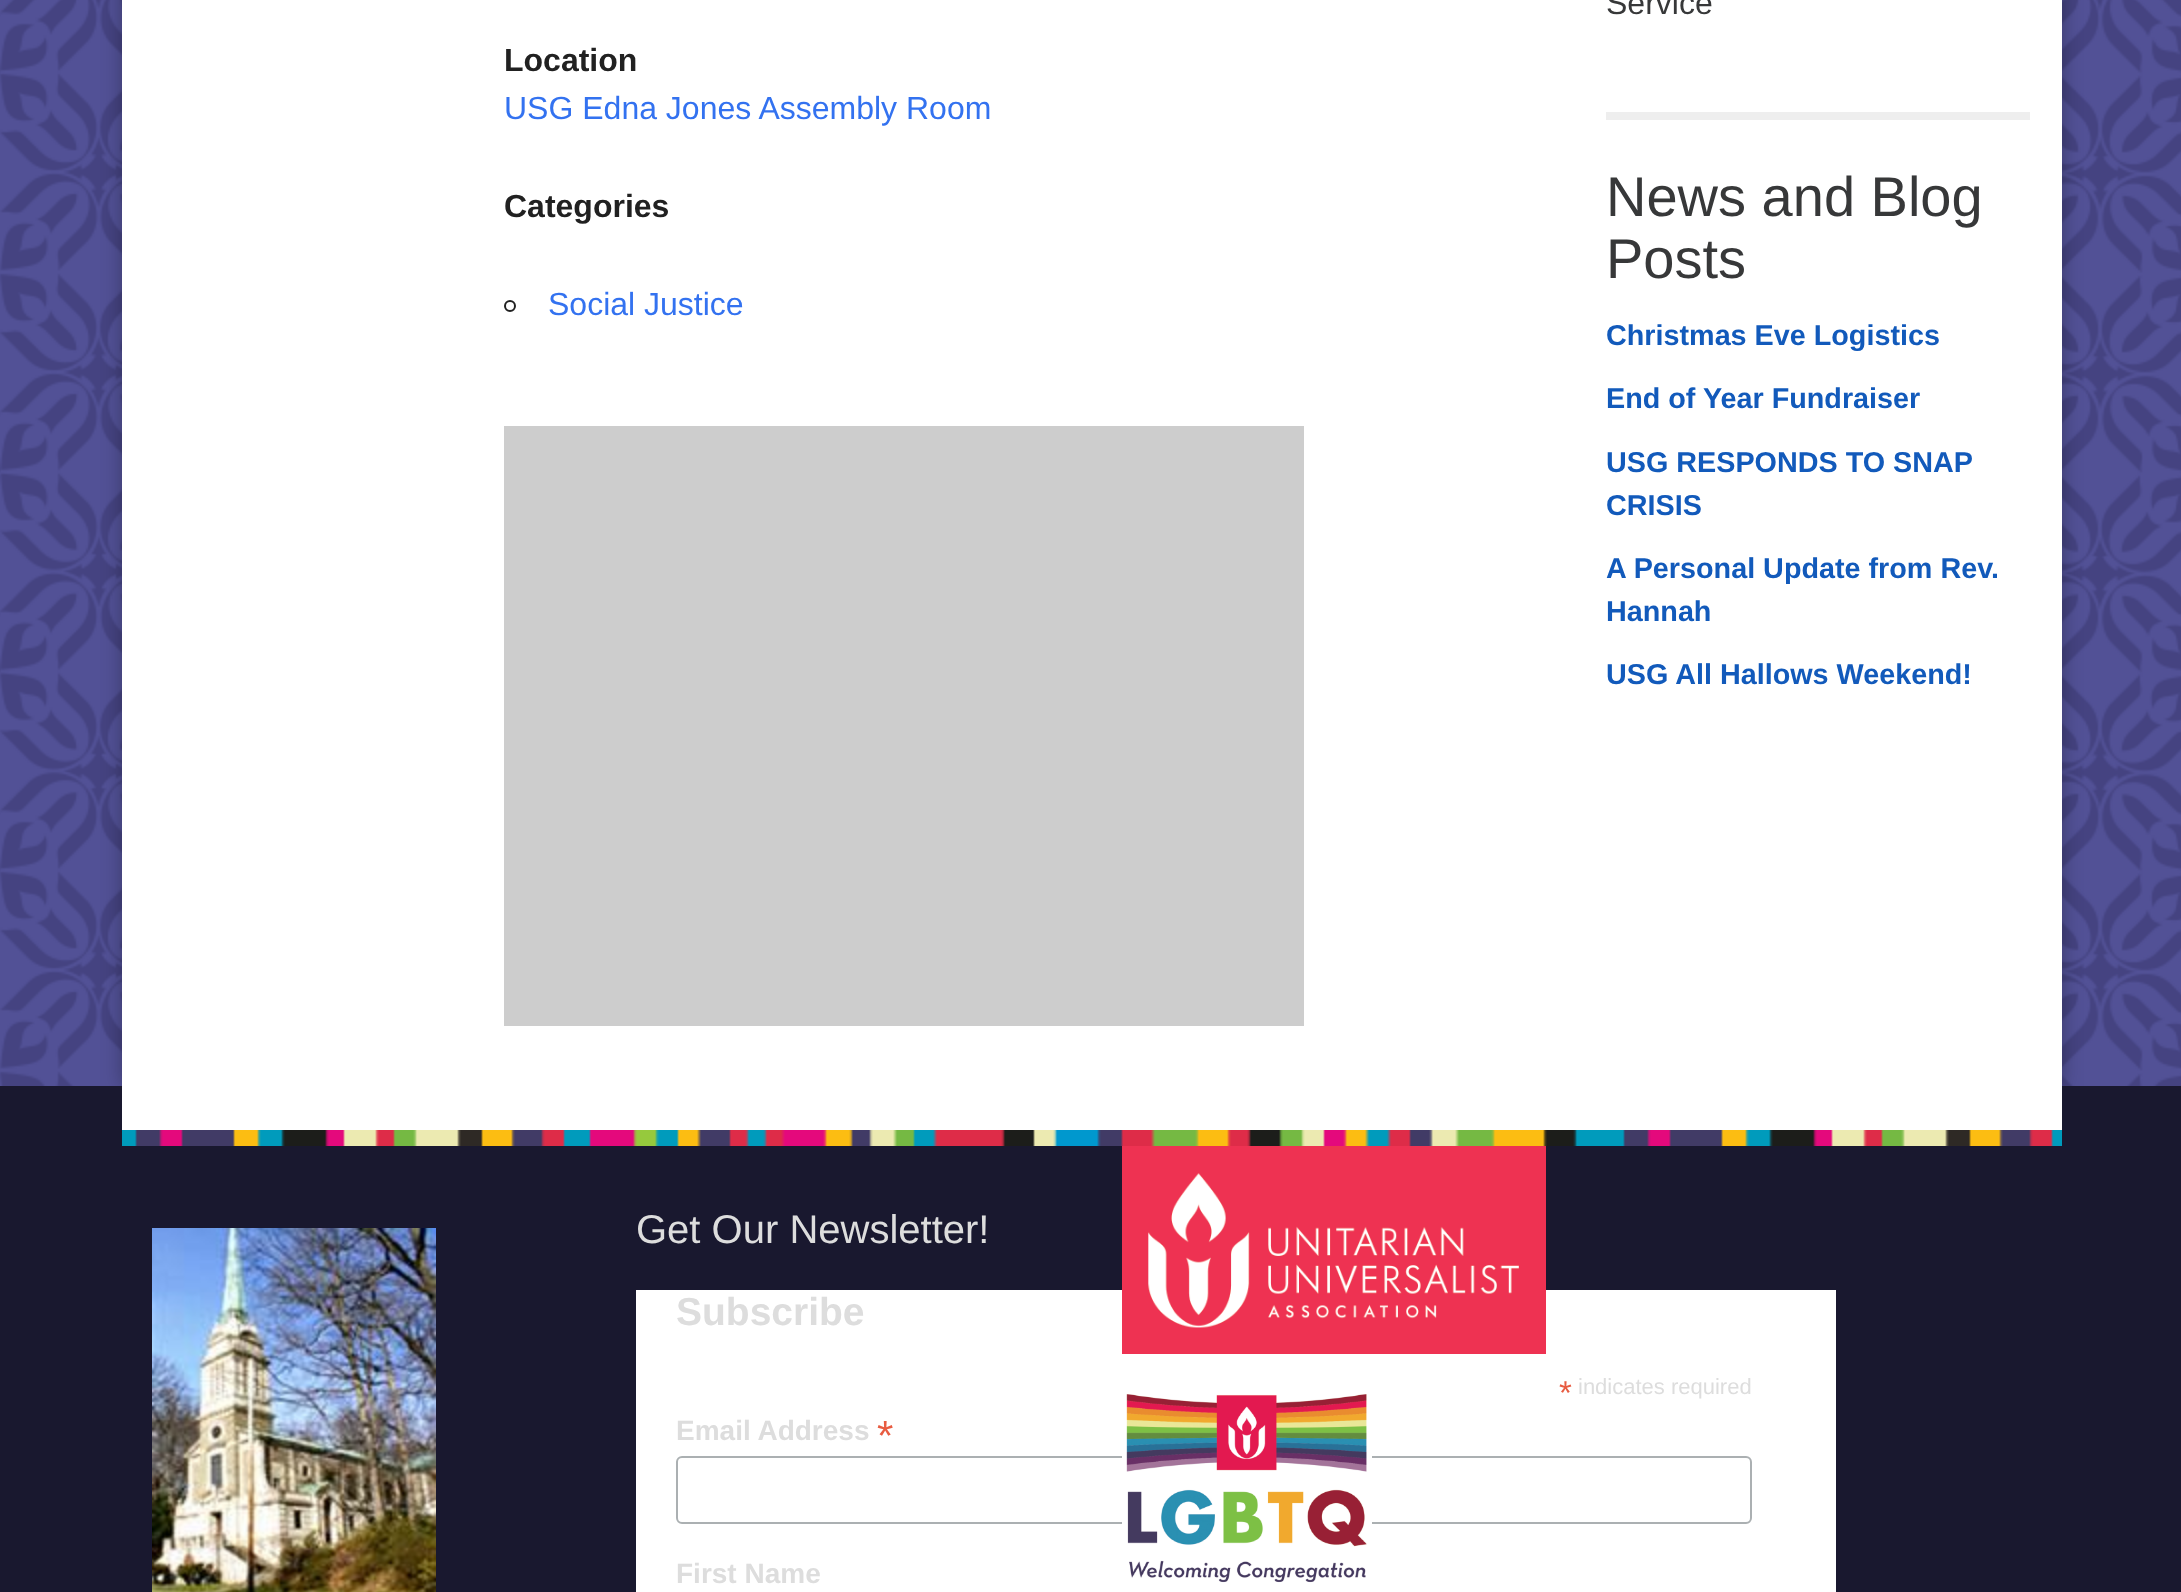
async function draw(canvas) {
	canvas.width = 2181;
	canvas.height = 1592;
	const c = canvas.getContext('2d');
	c.miterLimit = 4;
	c.fontKerning = 'normal';
	async function loadImage(src) {
		const img = new Image();
		img.src = src;
		await img.decode();
		return img;
	}

	c.fillStyle = '#fff';
	c.fillRect(0, 0, 2181, 1592);
	c.drawImage(await loadImage('img1.png'), 0, 0, 2181, 1086);
	c.fillStyle = '#0000004d';
	c.filter = 'blur(10px)';
	c.beginPath();
	c.rect(122, -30, 1940, 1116);
	c.fill();
	c.filter = 'none';
	c.fillStyle = '#fff';
	c.fillRect(122, 0, 1940, 1086);
	c.font = 'bold 32px Liberation Sans';
	c.fillStyle = '#212121';
	c.fillText('Location', 504, 71);
	c.font = '32px Liberation Sans';
	c.fillStyle = '#3372f0';
	c.fillText('USG Edna Jones Assembly Room', 504, 119);
	c.font = 'bold 32px Liberation Sans';
	c.fillStyle = '#212121';
	c.fillText('Categories', 504, 217);
	c.beginPath();
	c.arc(510, 306, 5, 0, 2 * Math.PI);
	c.strokeStyle = '#212121';
	c.lineWidth = 2;
	c.stroke();
	c.font = '32px Liberation Sans';
	c.fillStyle = '#3372f0';
	c.fillText('Social Justice', 548, 315);
	c.fillStyle = '#cdcdcd';
	c.fillRect(504, 426, 800, 600);
	c.fillStyle = '#373839';
	c.fillText('Service', 1606, 14);
	c.fillStyle = '#eee';
	c.fillRect(1606, 112, 424, 8);
	c.font = '56px Liberation Sans';
	c.fillStyle = '#373839';
	c.fillText('News and Blog', 1606, 216);
	c.fillText('Posts', 1606, 278);
	c.font = 'bold 28.75px Liberation Sans';
	c.fillStyle = '#125abb';
	for (const [text, x, y] of [
		['Christmas Eve Logistics', 1606, 345],
		['End of Year Fundraiser', 1606, 408],
		['USG RESPONDS TO SNAP', 1606, 472],
		['CRISIS', 1606, 515],
		['A Personal Update from Rev.', 1606, 578],
		['Hannah', 1606, 621],
		['USG All Hallows Weekend!', 1606, 684],
	]) {
		c.fillText(text, x, y);
	}
	c.fillStyle = '#19182f';
	c.fillRect(0, 1086, 2181, 506);
	c.fillStyle = '#fff';
	c.fillRect(122, 1086, 1940, 44);
	c.drawImage(await loadImage('img2.png'), 122, 1130, 1940, 16);
	c.fillRect(636, 1290, 1200, 302);
	c.drawImage(await loadImage('img3.png'), 1122, 1146, 424, 208);
	c.beginPath();
	c.roundRect(677, 1457, 1074, 66, 5);
	c.strokeStyle = '#abb0b2';
	c.stroke();
	c.drawImage(await loadImage('img4.png'), 1122, 1394, 250, 189);
	c.drawImage(await loadImage('img5.png'), 152, 1228, 284, 364);
	c.font = '40px Liberation Sans';
	c.fillStyle = '#ddd';
	c.fillText('Get Our Newsletter!', 636, 1243);
	c.font = 'bold 39px Liberation Sans';
	c.fillText('Subscribe', 676, 1325);
	c.font = '33px Liberation Sans';
	c.fillStyle = '#e85c41';
	c.fillText('*', 1559, 1404);
	c.font = '22px Liberation Sans';
	c.fillStyle = '#ddd';
	c.fillText('indicates required', 1578, 1394);
	c.font = 'bold 28px Liberation Sans';
	c.fillText('Email Address', 676, 1440);
	c.font = '42px Liberation Sans';
	c.fillStyle = '#e85c41';
	c.fillText('*', 877, 1450);
	c.font = 'bold 28px Liberation Sans';
	c.fillStyle = '#ddd';
	c.fillText('First Name', 676, 1583);
}

draw(document.querySelector('canvas'));
